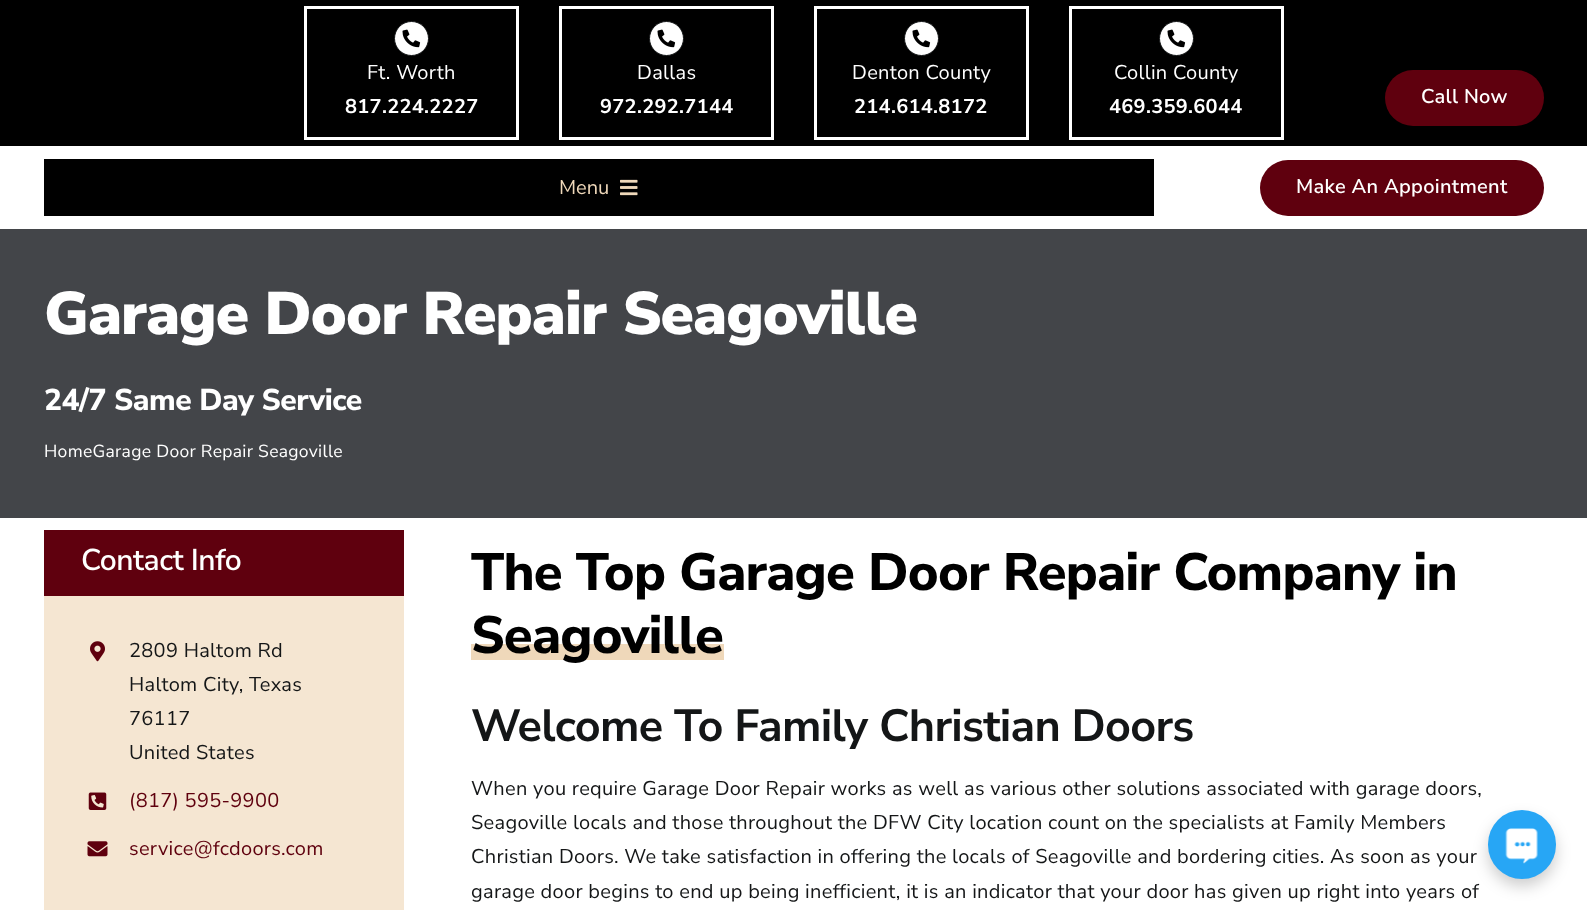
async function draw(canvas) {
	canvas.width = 1587;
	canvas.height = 910;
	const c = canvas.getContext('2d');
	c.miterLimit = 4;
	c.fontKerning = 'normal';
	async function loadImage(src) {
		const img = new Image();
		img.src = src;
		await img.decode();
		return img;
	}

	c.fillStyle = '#fff';
	c.fillRect(0, 0, 1587, 910);
	c.fillStyle = '#000';
	c.fillRect(0, 0, 1587, 146);
	c.strokeStyle = '#fff';
	c.lineWidth = 3;
	c.strokeRect(305.5, 7.5, 212, 131);
	c.fillStyle = '#fff';
	c.beginPath();
	c.arc(411.5, 38.5, 17, 0, 2 * Math.PI);
	c.fill();
	c.strokeStyle = '#141617';
	c.lineWidth = 1;
	c.stroke();
	c.drawImage(await loadImage('img1.png'), 402, 29, 19, 19);
	c.letterSpacing = '0.3px';
	c.font = '20px Nunito Sans';
	c.fillText('Ft. Worth', 367, 79);
	c.font = 'bold 20px Nunito Sans';
	c.fillText('817.224.2227', 345, 113);
	c.strokeStyle = '#fff';
	c.lineWidth = 3;
	c.strokeRect(560.5, 7.5, 212, 131);
	c.beginPath();
	c.arc(666.5, 38.5, 17, 0, 2 * Math.PI);
	c.fill();
	c.strokeStyle = '#141617';
	c.lineWidth = 1;
	c.stroke();
	c.drawImage(await loadImage('img1.png'), 657, 29, 19, 19);
	c.font = '20px Nunito Sans';
	c.fillText('Dallas', 637, 79);
	c.font = 'bold 20px Nunito Sans';
	c.fillText('972.292.7144', 600, 113);
	c.strokeStyle = '#fff';
	c.lineWidth = 3;
	c.strokeRect(815.5, 7.5, 212, 131);
	c.beginPath();
	c.arc(921.5, 38.5, 17, 0, 2 * Math.PI);
	c.fill();
	c.strokeStyle = '#141617';
	c.lineWidth = 1;
	c.stroke();
	c.drawImage(await loadImage('img1.png'), 912, 29, 19, 19);
	c.font = '20px Nunito Sans';
	c.fillText('Denton County', 852, 79);
	c.font = 'bold 20px Nunito Sans';
	c.fillText('214.614.8172', 854, 113);
	c.strokeStyle = '#fff';
	c.lineWidth = 3;
	c.strokeRect(1070.5, 7.5, 212, 131);
	c.beginPath();
	c.arc(1176.5, 38.5, 17, 0, 2 * Math.PI);
	c.fill();
	c.strokeStyle = '#141617';
	c.lineWidth = 1;
	c.stroke();
	c.drawImage(await loadImage('img1.png'), 1167, 29, 19, 19);
	c.font = '20px Nunito Sans';
	c.fillText('Collin County', 1114, 79);
	c.font = 'bold 20px Nunito Sans';
	c.fillText('469.359.6044', 1109, 113);
	c.fillStyle = '#5f000e';
	c.beginPath();
	c.roundRect(1385, 70, 159, 56, 28);
	c.fill();
	c.font = '600 20px Nunito Sans';
	c.fillStyle = '#fff';
	c.fillText('Call Now', 1421, 103);
	c.fillStyle = '#000';
	c.fillRect(44, 159, 1110, 57);
	c.letterSpacing = '0px';
	c.font = '20px Nunito Sans';
	c.fillStyle = '#efd8ba';
	c.fillText('Menu', 559, 194);
	c.drawImage(await loadImage('img2.png'), 620, 179, 18, 17);
	c.fillStyle = '#5f000e';
	c.beginPath();
	c.roundRect(1260, 160, 284, 56, 28);
	c.fill();
	c.letterSpacing = '0.3px';
	c.font = '600 20px Nunito Sans';
	c.fillStyle = '#fff';
	c.fillText('Make An Appointment', 1296, 193);
	c.fillStyle = '#434549';
	c.fillRect(0, 229, 1587, 289);
	c.letterSpacing = '-0.9px';
	c.font = '900 60px Nunito Sans';
	c.fillStyle = '#fff';
	c.fillText('Garage Door Repair Seagoville', 44, 334);
	c.letterSpacing = '-0.45px';
	c.font = '800 30px Nunito Sans';
	c.fillText('24/7 Same Day Service', 44, 410);
	c.letterSpacing = '0.3px';
	c.font = '17.5px Nunito Sans';
	c.fillText('HomeGarage Door Repair Seagoville', 44, 457);
	c.fillStyle = '#f5e6d2';
	c.fillRect(44, 596, 360, 314);
	c.fillStyle = '#5f000e';
	c.fillRect(44, 530, 360, 66);
	c.letterSpacing = '-0.45px';
	c.font = '600 30px Nunito Sans';
	c.fillStyle = '#fff';
	c.fillText('Contact Info', 81, 570);
	c.drawImage(await loadImage('img3.png'), 90, 641, 15, 21);
	c.letterSpacing = '0.3px';
	c.font = '20px Nunito Sans';
	c.fillStyle = '#141617';
	for (const [text, x, y] of [
		['2809 Haltom Rd', 129, 657],
		['Haltom City, Texas', 129, 691],
		['76117', 129, 725],
		['United States', 129, 759],
	]) {
		c.fillText(text, x, y);
	}
	c.drawImage(await loadImage('img4.png'), 88, 792, 19, 18);
	c.fillStyle = '#5f000e';
	c.fillText('(817) 595-9900', 129, 807);
	c.drawImage(await loadImage('img5.png'), 87, 841, 21, 16);
	c.fillText('service@fcdoors.com', 129, 855);
	c.letterSpacing = '-0.8px';
	c.font = '800 52.5px Nunito Sans';
	c.fillStyle = '#000';
	c.fillText('The Top Garage Door Repair Company in', 471, 590);
	c.fillStyle = '#efd8ba';
	c.fillRect(471, 644, 253, 16);
	c.fillStyle = '#000';
	c.fillText('Seagoville', 471, 653);
	c.letterSpacing = '-0.7px';
	c.font = 'bold 45px Nunito Sans';
	c.fillStyle = '#141617';
	c.fillText('Welcome To Family Christian Doors', 471, 741);
	c.letterSpacing = '0.3px';
	c.font = '20px Nunito Sans';
	for (const [text, x, y] of [
		['When you require Garage Door Repair works as well as various other solutions associated with garage doors,', 471, 795],
		['Seagoville locals and those throughout the DFW City location count on the specialists at Family Members', 471, 829],
		['Christian Doors. We take satisfaction in offering the locals of Seagoville and bordering cities. As soon as your', 471, 863],
		['garage door begins to end up being inefficient, it is an indicator that your door has given up right into years of', 471, 898],
	]) {
		c.fillText(text, x, y);
	}
	c.fillStyle = '#00000033';
	c.filter = 'blur(7.5px)';
	c.beginPath();
	c.roundRect(1488, 818, 68, 68, 34);
	c.fill();
	c.filter = 'none';
	c.fillStyle = '#27a6f5';
	c.beginPath();
	c.roundRect(1488, 810, 68, 69, 34);
	c.fill();
	c.drawImage(await loadImage('img6.png'), 1505, 828, 33, 36);
}

draw(document.querySelector('canvas'));
